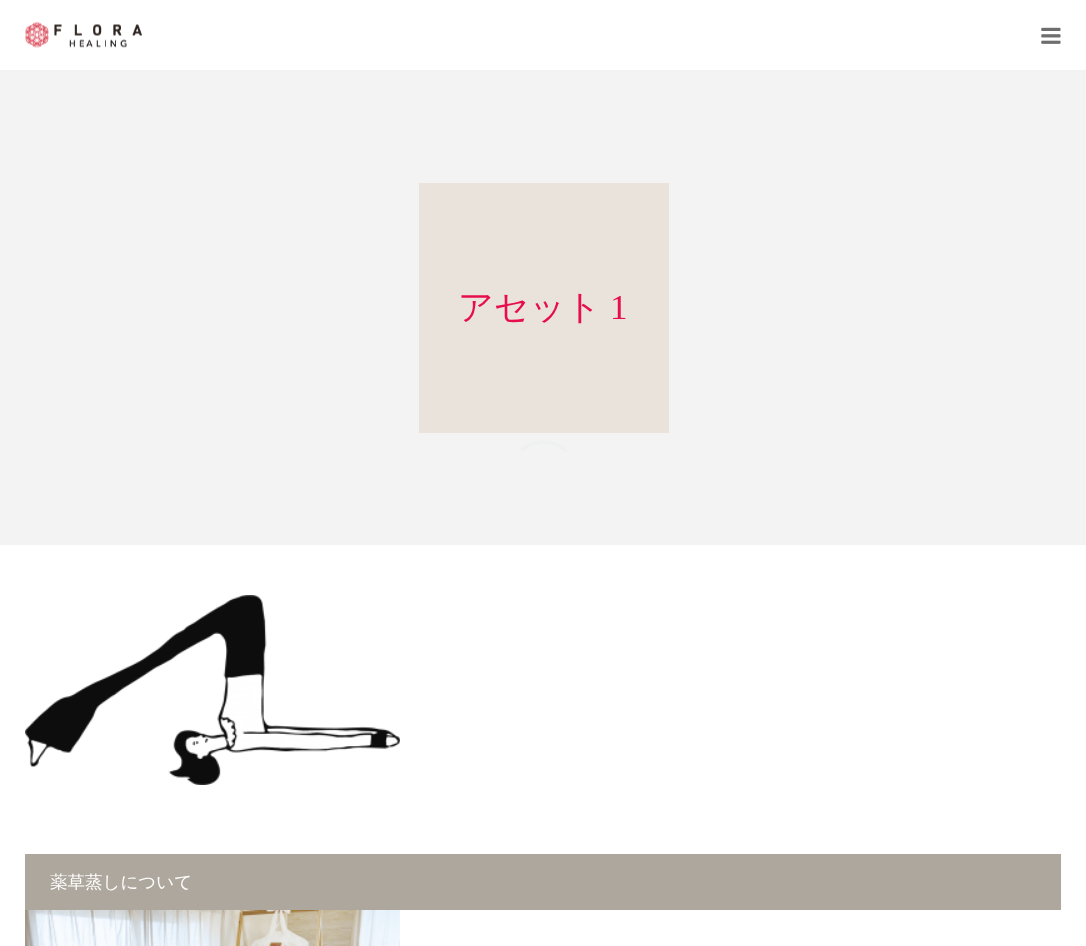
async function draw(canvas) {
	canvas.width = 1086;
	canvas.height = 946;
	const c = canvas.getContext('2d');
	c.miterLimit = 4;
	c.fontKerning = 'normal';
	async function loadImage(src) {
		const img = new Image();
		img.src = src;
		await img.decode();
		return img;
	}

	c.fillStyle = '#fff';
	c.fillRect(0, 0, 1086, 946);
	c.drawImage(await loadImage('img1.png'), 25, 22, 117, 26);
	c.drawImage(await loadImage('img2.png'), 1041, 27, 20, 17);
	c.fillStyle = '#f3f3f3';
	c.fillRect(0, 70, 1086, 475);
	c.fillStyle = '#e9e3db';
	c.fillRect(419, 183, 250, 250);
	c.font = '500 35px WenQuanYi Zen Hei';
	c.fillStyle = '#e60e4d';
	c.fillText('アセット', 458, 319);
	c.font = '35px Liberation Serif';
	c.fillText('1', 610, 319);
	c.drawImage(await loadImage('img3.png'), 25, 595, 375, 190);
	c.fillStyle = '#aea79d';
	c.fillRect(25, 854, 1036, 56);
	c.font = '500 17.5px WenQuanYi Zen Hei';
	c.fillStyle = '#fff';
	c.fillText('薬草蒸しについて', 50, 888);
	c.drawImage(await loadImage('img4.png'), 25, 910, 375, 36);
	c.beginPath();
	c.moveTo(521, 451);
	c.bezierCurveTo(533.5, 439, 554, 439, 566.5, 451);
	c.strokeStyle = '#eff0f0';
	c.lineWidth = 3.8;
	c.stroke();
}

draw(document.querySelector('canvas'));
